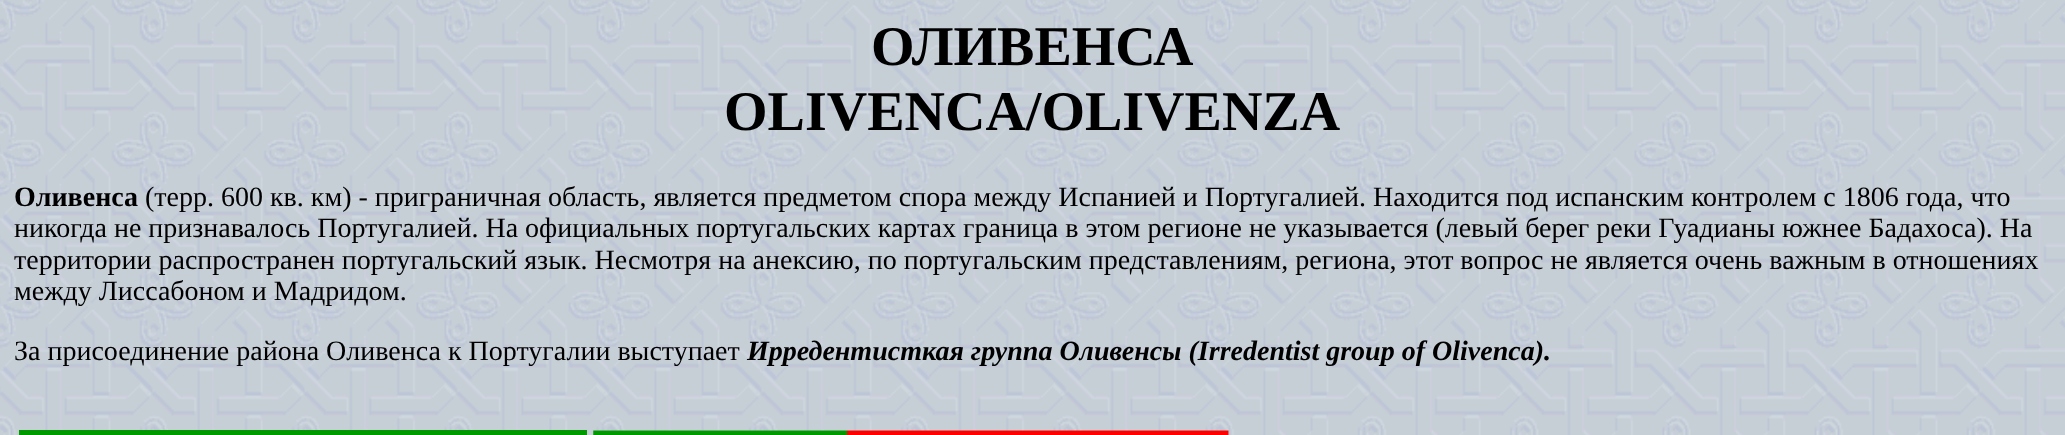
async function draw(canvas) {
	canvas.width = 2065;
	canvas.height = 435;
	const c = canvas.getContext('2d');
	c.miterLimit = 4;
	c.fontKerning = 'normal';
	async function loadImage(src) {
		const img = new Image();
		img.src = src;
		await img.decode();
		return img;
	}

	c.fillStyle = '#fff';
	c.fillRect(0, 0, 2065, 435);
	c.drawImage(await loadImage('img1.png'), 0, 0, 2065, 435);
	c.font = 'bold 56px Liberation Serif';
	c.fillStyle = '#000';
	c.fillText('ОЛИВЕНСА', 871, 65);
	c.fillText('OLIVENCA/OLIVENZA', 724, 130);
	c.font = 'bold 28px Liberation Serif';
	c.fillText('Оливенса', 14, 206);
	c.font = '28px Liberation Serif';
	for (const [text, x, y] of [
		['(терр. 600 кв. км) - приграничная область, является предметом спора между Испанией и Португалией. Находится под испанским контролем с 1806 года, что', 145, 206],
		['никогда не признавалось Португалией. На официальных португальских картах граница в этом регионе не указывается (левый берег реки Гуадианы южнее Бадахоса). На', 14, 237],
		['территории распространен португальский язык. Несмотря на анексию, по португальским представлениям, региона, этот вопрос не является очень важным в отношениях', 14, 269],
		['между Лиссабоном и Мадридом.', 14, 300],
		['За присоединение района Оливенса к Португалии выступает', 14, 360],
	]) {
		c.fillText(text, x, y);
	}
	c.font = 'italic bold 28px Liberation Serif';
	c.fillText('Ирредентисткая группа Оливенсы (Irredentist group of Olivenca).', 747, 360);
	c.fillStyle = '#090';
	c.fillRect(19, 430, 568, 5);
	c.drawImage(await loadImage('img2.png'), 593, 430, 636, 5);
}

draw(document.querySelector('canvas'));
